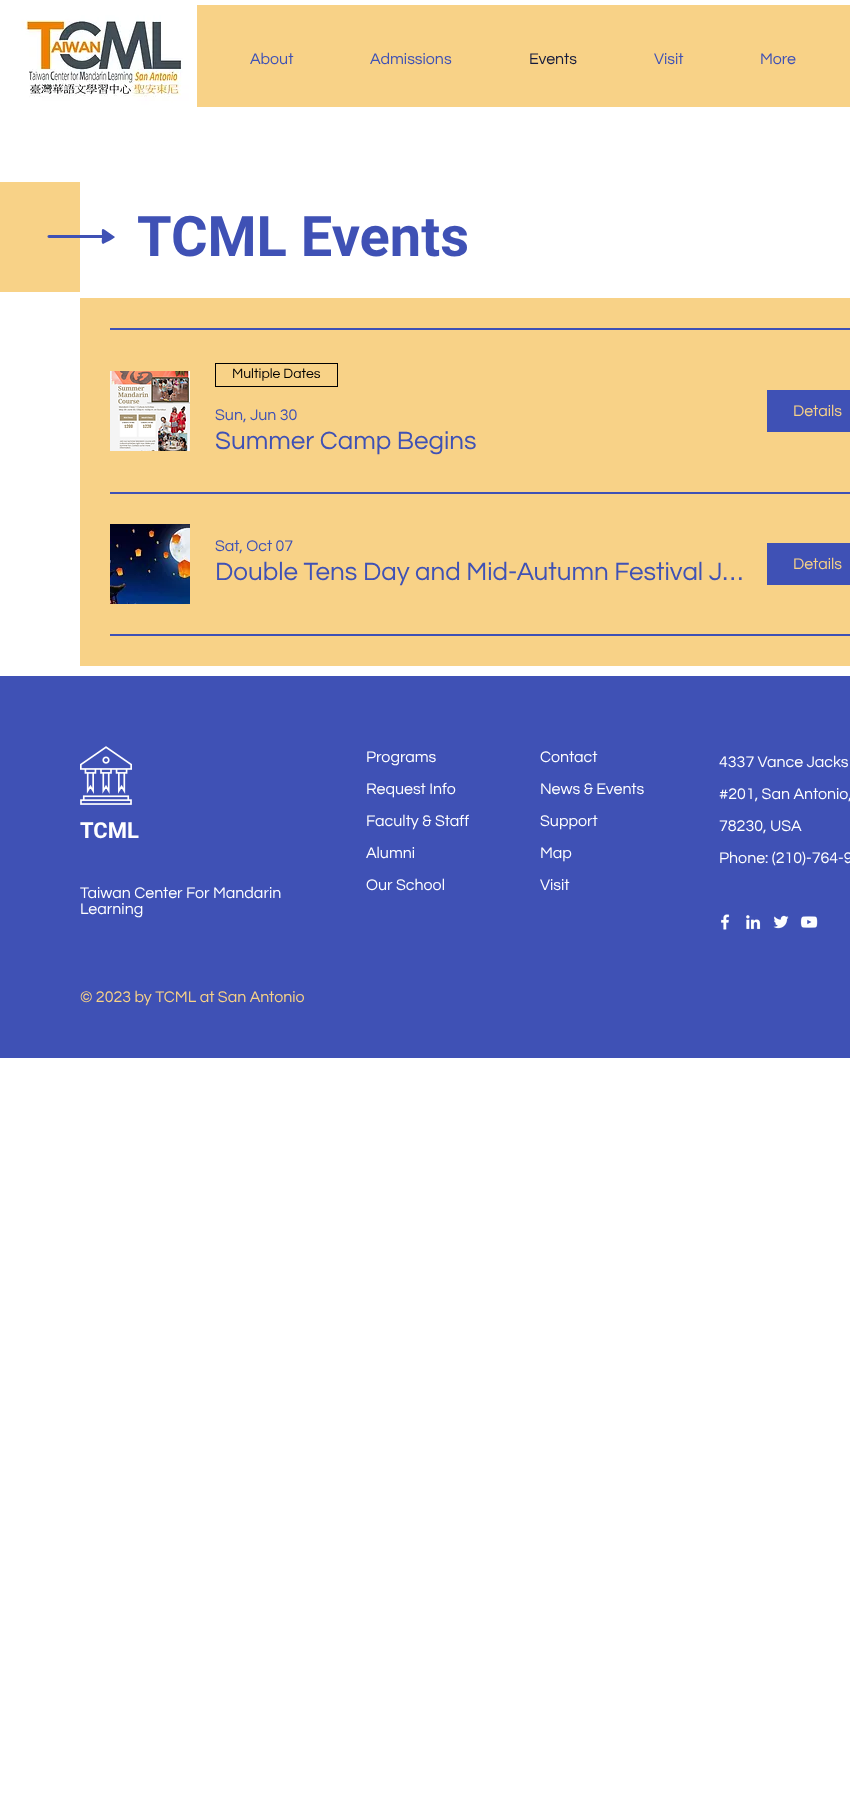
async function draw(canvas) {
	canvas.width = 850;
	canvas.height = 1802;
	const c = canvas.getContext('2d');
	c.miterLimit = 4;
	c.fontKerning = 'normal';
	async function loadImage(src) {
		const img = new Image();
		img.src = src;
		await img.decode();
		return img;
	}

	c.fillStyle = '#fff';
	c.fillRect(0, 0, 850, 1802);
	c.drawImage(await loadImage('img1.png'), 0, 5, 197, 102);
	c.fillStyle = '#f8d287';
	c.fillRect(197, 5, 653, 102);
	c.font = '16px Questrial';
	c.fillStyle = '#3f51b5';
	c.fillText('About', 250, 64);
	c.fillText('Admissions', 370, 64);
	c.fillStyle = '#151b3c';
	c.fillText('Events', 529, 64);
	c.fillStyle = '#3f51b5';
	c.fillText('Visit', 654, 64);
	c.fillText('More', 760, 64);
	c.fillStyle = '#f8d287';
	c.fillRect(0, 182, 80, 110);
	c.fillStyle = '#3f51b5';
	c.beginPath();
	c.moveTo(49, 238);
	c.lineTo(102, 238);
	c.bezierCurveTo(102, 239, 101, 243, 103, 244);
	c.bezierCurveTo(103, 244, 115, 238, 115, 237);
	c.lineTo(105, 230);
	c.bezierCurveTo(101, 227, 102, 231, 102, 235);
	c.lineTo(49, 235);
	c.bezierCurveTo(47, 235, 47, 238, 49, 238);
	c.closePath();
	c.fill();
	c.font = 'bold 56px Roboto';
	c.fillText('TCML Events', 137, 256);
	for (const [x, y, w, h, color] of [
		[80, 298, 770, 368, '#f8d287'],
		[110, 328, 740, 2, '#3f51b5'],
		[110, 492, 740, 2, '#3f51b5'],
	]) {
		c.fillStyle = color;
		c.fillRect(x, y, w, h);
	}
	c.drawImage(await loadImage('img2.png'), 110, 371, 80, 80);
	c.strokeStyle = '#000';
	c.strokeRect(215.5, 363.5, 122, 23);
	c.font = '14px Questrial';
	c.fillStyle = '#000';
	c.fillText('Multiple Dates', 232, 378);
	c.font = '16px Questrial';
	c.fillStyle = '#3f51b5';
	c.fillText('Sun, Jun 30', 215, 420);
	c.font = '26px Questrial';
	c.fillText('Summer Camp Begins', 215, 449);
	c.fillRect(767, 390, 83, 42);
	c.font = '16px Questrial';
	c.fillStyle = '#f8d287';
	c.fillText('Details', 793, 416);
	c.fillStyle = '#3f51b5';
	c.fillRect(110, 634, 740, 2);
	c.drawImage(await loadImage('img3.png'), 110, 524, 80, 80);
	c.fillText('Sat, Oct 07', 215, 551);
	c.font = '26px Questrial';
	c.fillText('Double Tens Day and Mid-Autumn Festival J…', 215, 580);
	c.fillRect(767, 543, 83, 42);
	c.font = '16px Questrial';
	c.fillStyle = '#f8d287';
	c.fillText('Details', 793, 569);
	c.fillStyle = '#3f51b5';
	c.fillRect(0, 676, 850, 382);
	c.drawImage(await loadImage('img4.png'), 80, 746, 52, 59);
	c.fillStyle = '#fff';
	for (const [text, x, y] of [
		['Programs', 366, 762],
		['Request Info', 366, 794],
		['Faculty & Staff', 366, 826],
		['Alumni', 366, 858],
		['Our School', 366, 890],
		['Contact', 540, 762],
		['News & Events', 540, 794],
		['Support', 540, 826],
		['Map', 540, 858],
		['Visit', 540, 890],
	]) {
		c.fillText(text, x, y);
	}
	c.font = 'bold 22px Roboto';
	c.fillText('TCML', 80, 838);
	c.font = '16px Questrial';
	c.fillText('Taiwan Center For Mandarin', 80, 898);
	c.fillText('Learning', 80, 914);
	c.fillStyle = '#f8d287';
	c.fillText('© 2023 by TCML at San Antonio', 80, 1002);
	c.fillStyle = '#fff';
	for (const [text, x, y] of [
		['4337 Vance Jacks', 719, 767],
		['#201, San Antonio,', 719, 799],
		['78230, USA', 719, 831],
		['Phone: (210)-764-9', 719, 863],
	]) {
		c.fillText(text, x, y);
	}
	c.drawImage(await loadImage('img5.png'), 721, 914, 9, 16);
	c.drawImage(await loadImage('img6.png'), 746, 915, 15, 15);
	c.drawImage(await loadImage('img7.png'), 773, 915, 16, 14);
	c.drawImage(await loadImage('img8.png'), 800, 916, 18, 12);
}

draw(document.querySelector('canvas'));
